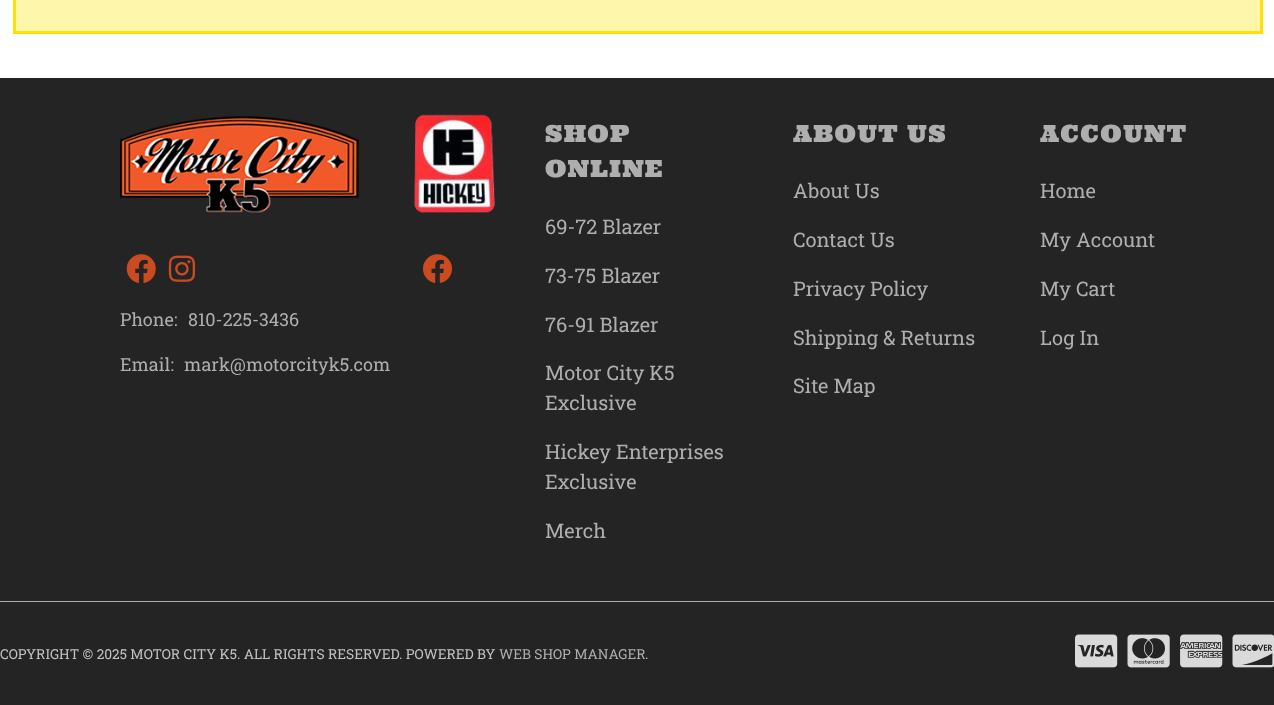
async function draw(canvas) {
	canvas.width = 1274;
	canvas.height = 705;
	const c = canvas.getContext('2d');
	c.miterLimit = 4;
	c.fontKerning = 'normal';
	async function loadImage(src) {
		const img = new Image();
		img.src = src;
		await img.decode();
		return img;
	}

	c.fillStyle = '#fff';
	c.fillRect(0, 0, 1274, 705);
	c.fillStyle = '#fef6ab';
	c.beginPath();
	c.rect(14.5, -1.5, 1247, 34);
	c.fill();
	c.strokeStyle = '#fde100';
	c.lineWidth = 3;
	c.stroke();
	c.fillStyle = '#242424';
	c.fillRect(0, 78, 1274, 627);
	c.drawImage(await loadImage('img1.png'), 120, 114, 375, 99);
	c.drawImage(await loadImage('img2.png'), 126, 254, 30, 29);
	c.drawImage(await loadImage('img3.png'), 168, 255, 28, 27);
	c.drawImage(await loadImage('img4.png'), 423, 254, 29, 29);
	c.font = '18px Roboto Slab';
	c.fillStyle = '#aeaeae';
	for (const [text, x, y] of [
		['Phone:', 120, 326],
		['810-225-3436', 188, 326],
		['Email:', 120, 371],
		['mark@motorcityk5.com', 184, 371],
	]) {
		c.fillText(text, x, y);
	}
	c.letterSpacing = '1.25px';
	c.font = '23.75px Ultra';
	c.fillText('SHOP', 545, 142);
	c.fillText('ONLINE', 545, 177);
	c.letterSpacing = '0px';
	c.font = '20px Roboto Slab';
	for (const [text, x, y] of [
		['69-72 Blazer', 545, 234],
		['73-75 Blazer', 545, 283],
		['76-91 Blazer', 545, 332],
		['Motor City K5', 545, 380],
		['Exclusive', 545, 410],
		['Hickey Enterprises', 545, 459],
		['Exclusive', 545, 489],
		['Merch', 545, 538],
	]) {
		c.fillText(text, x, y);
	}
	c.letterSpacing = '1.25px';
	c.font = '23.75px Ultra';
	c.fillText('ABOUT US', 793, 142);
	c.letterSpacing = '0px';
	c.font = '20px Roboto Slab';
	for (const [text, x, y] of [
		['About Us', 793, 198],
		['Contact Us', 793, 247],
		['Privacy Policy', 793, 296],
		['Shipping & Returns', 793, 345],
		['Site Map', 793, 393],
	]) {
		c.fillText(text, x, y);
	}
	c.letterSpacing = '1.25px';
	c.font = '23.75px Ultra';
	c.fillText('ACCOUNT', 1040, 142);
	c.letterSpacing = '0px';
	c.font = '20px Roboto Slab';
	for (const [text, x, y] of [
		['Home', 1040, 198],
		['My Account', 1040, 247],
		['My Cart', 1040, 296],
		['Log In', 1040, 345],
	]) {
		c.fillText(text, x, y);
	}
	c.fillRect(0, 601, 1274, 1);
	c.font = '13.75px Roboto Slab';
	c.fillStyle = '#c2c2c2';
	c.fillText('COPYRIGHT © 2025 MOTOR CITY K5. ALL RIGHTS RESERVED. POWERED BY', 0, 659);
	c.fillStyle = '#aeaeae';
	c.fillText('WEB SHOP MANAGER', 499, 659);
	c.fillStyle = '#c2c2c2';
	c.fillText('.', 645, 659);
	c.drawImage(await loadImage('img5.png'), 1075, 634, 43, 34);
	c.drawImage(await loadImage('img6.png'), 1127, 634, 43, 34);
	c.drawImage(await loadImage('img7.png'), 1180, 634, 43, 34);
	c.drawImage(await loadImage('img8.png'), 1232, 634, 42, 34);
}

draw(document.querySelector('canvas'));
